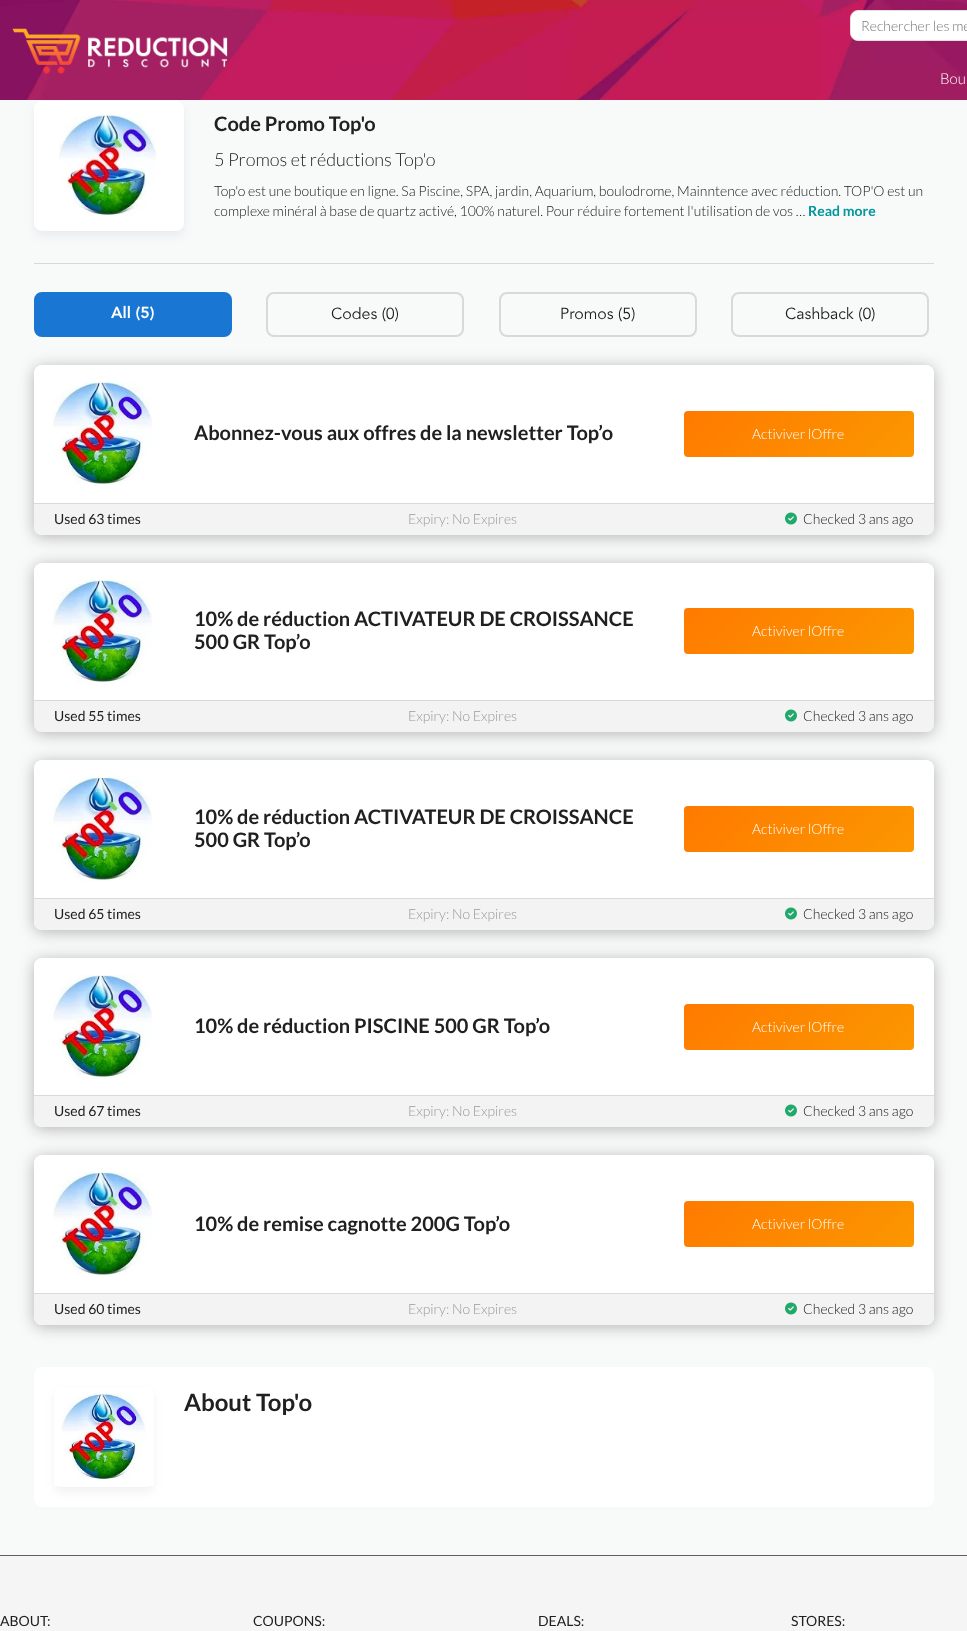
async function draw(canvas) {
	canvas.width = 967;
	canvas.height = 1631;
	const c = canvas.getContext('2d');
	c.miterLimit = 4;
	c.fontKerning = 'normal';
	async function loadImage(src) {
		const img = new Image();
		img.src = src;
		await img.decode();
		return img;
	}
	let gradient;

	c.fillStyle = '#f8f9f9';
	c.fillRect(0, 0, 967, 1631);
	c.drawImage(await loadImage('img1.png'), 0, 0, 967, 100);
	c.drawImage(await loadImage('img2.png'), 12, 28, 216, 46);
	c.fillStyle = '#fff';
	c.beginPath();
	c.roundRect(850.5, 10.5, 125, 30, 7.5);
	c.fill();
	c.strokeStyle = '#e0e0e0';
	c.stroke();
	c.font = '300 14px Lato';
	c.fillStyle = '#757575';
	c.fillText('Rechercher les me', 861, 31);
	c.font = '300 15px Lato';
	c.fillStyle = '#fff';
	c.fillText('Bou', 940, 84);
	c.fillStyle = '#d9d9d9';
	c.fillRect(34, 263, 900, 1);
	c.fillStyle = '#73779d1a';
	c.filter = 'blur(5px)';
	c.beginPath();
	c.roundRect(34, 106, 150, 130, 8);
	c.fill();
	c.filter = 'none';
	c.fillStyle = '#fff';
	c.beginPath();
	c.roundRect(34, 101, 150, 130, 8);
	c.fill();
	c.drawImage(await loadImage('img3.png'), 59, 114, 98, 102);
	c.font = 'bold 20px Lato';
	c.fillStyle = '#202020';
	c.fillText('Code Promo Top\'o', 214, 131);
	c.font = '300 18px Lato';
	c.fillText('5 Promos et réductions Top\'o', 214, 166);
	c.font = '300 14px Lato';
	c.fillText('Top\'o est une boutique en ligne. Sa Piscine, SPA, jardin, Aquarium, boulodrome, Mainntence avec réduction. TOP\'O est un', 214, 196);
	c.fillText('complexe minéral à base de quartz activé, 100% naturel. Pour réduire fortement l\'utilisation de vos …', 214, 216);
	c.font = 'bold 14px Lato';
	c.fillStyle = '#00979d';
	c.fillText('Read more', 808, 216);
	c.fillStyle = '#1976d2';
	c.beginPath();
	c.roundRect(35, 293, 196, 43, 7);
	c.fill();
	c.strokeStyle = '#1976d2';
	c.lineWidth = 2;
	c.stroke();
	c.font = '900 16px Avenir';
	c.fillStyle = '#fff';
	c.fillText('All (5)', 111, 318);
	c.beginPath();
	c.roundRect(267, 293, 196, 43, 7);
	c.strokeStyle = '#d9d9d9';
	c.stroke();
	c.font = '16px Avenir';
	c.fillStyle = '#202020';
	c.fillText('Codes (0)', 331, 319);
	c.beginPath();
	c.roundRect(500, 293, 196, 43, 7);
	c.stroke();
	c.fillText('Promos (5)', 560, 319);
	c.beginPath();
	c.roundRect(732, 293, 196, 43, 7);
	c.stroke();
	c.fillText('Cashback (0)', 785, 319);
	c.fillStyle = '#b4b4b4';
	c.filter = 'blur(7.5px)';
	c.beginPath();
	c.roundRect(34, 367, 900, 170, 8);
	c.fill();
	c.filter = 'none';
	c.fillStyle = '#fff';
	c.beginPath();
	c.roundRect(34, 365, 900, 170, 8);
	c.fill();
	c.fillStyle = '#d9d9d9';
	c.fillRect(34, 503, 900, 1);
	c.drawImage(await loadImage('img4.png'), 53, 381, 99, 105);
	c.font = 'bold 20px Lato';
	c.fillStyle = '#202020';
	c.fillText('Abonnez-vous aux offres de la newsletter Top’o', 194, 440);
	gradient = c.createLinearGradient(868, 503, 730, 365);
	gradient.addColorStop(0, '#fb9700');
	gradient.addColorStop(1, '#ff7a00');
	c.fillStyle = gradient;
	c.beginPath();
	c.roundRect(684, 411, 230, 46, 4);
	c.fill();
	c.font = '300 14px Lato';
	c.fillStyle = '#fff';
	c.fillText('Activiver lOffre', 752, 439);
	c.fillStyle = '#f3f3f3';
	c.beginPath();
	c.roundRect(34, 504, 900, 31, [0, 0, 8, 8]);
	c.fill();
	c.font = '14px Lato';
	c.fillStyle = '#202020';
	c.fillText('Used 63 times', 54, 524);
	c.font = '300 14px Lato';
	c.fillStyle = '#999';
	c.fillText('Expiry: No Expires', 408, 524);
	c.drawImage(await loadImage('img5.png'), 785, 512, 12, 13);
	c.fillStyle = '#202020';
	c.fillText('Checked 3 ans ago', 803, 524);
	c.fillStyle = '#b4b4b4';
	c.filter = 'blur(7.5px)';
	c.beginPath();
	c.roundRect(34, 565, 900, 169, 8);
	c.fill();
	c.filter = 'none';
	c.fillStyle = '#fff';
	c.beginPath();
	c.roundRect(34, 563, 900, 169, 8);
	c.fill();
	c.fillStyle = '#d9d9d9';
	c.fillRect(34, 700, 900, 1);
	c.drawImage(await loadImage('img4.png'), 53, 579, 99, 105);
	c.font = 'bold 20px Lato';
	c.fillStyle = '#202020';
	c.fillText('10% de réduction ACTIVATEUR DE CROISSANCE', 194, 626);
	c.fillText('500 GR Top’o', 194, 649);
	gradient = c.createLinearGradient(868, 700, 730, 562);
	gradient.addColorStop(0, '#fb9700');
	gradient.addColorStop(1, '#ff7a00');
	c.fillStyle = gradient;
	c.beginPath();
	c.roundRect(684, 608, 230, 46, 4);
	c.fill();
	c.font = '300 14px Lato';
	c.fillStyle = '#fff';
	c.fillText('Activiver lOffre', 752, 636);
	c.fillStyle = '#f3f3f3';
	c.beginPath();
	c.roundRect(34, 701, 900, 31, [0, 0, 8, 8]);
	c.fill();
	c.font = '14px Lato';
	c.fillStyle = '#202020';
	c.fillText('Used 55 times', 54, 721);
	c.font = '300 14px Lato';
	c.fillStyle = '#999';
	c.fillText('Expiry: No Expires', 408, 721);
	c.drawImage(await loadImage('img5.png'), 785, 709, 12, 13);
	c.fillStyle = '#202020';
	c.fillText('Checked 3 ans ago', 803, 721);
	c.fillStyle = '#b4b4b4';
	c.filter = 'blur(7.5px)';
	c.beginPath();
	c.roundRect(34, 762, 900, 170, 8);
	c.fill();
	c.filter = 'none';
	c.fillStyle = '#fff';
	c.beginPath();
	c.roundRect(34, 760, 900, 170, 8);
	c.fill();
	c.fillStyle = '#d9d9d9';
	c.fillRect(34, 898, 900, 1);
	c.drawImage(await loadImage('img6.png'), 53, 776, 99, 106);
	c.font = 'bold 20px Lato';
	c.fillStyle = '#202020';
	c.fillText('10% de réduction ACTIVATEUR DE CROISSANCE', 194, 824);
	c.fillText('500 GR Top’o', 194, 847);
	gradient = c.createLinearGradient(868, 898, 730, 760);
	gradient.addColorStop(0, '#fb9700');
	gradient.addColorStop(1, '#ff7a00');
	c.fillStyle = gradient;
	c.beginPath();
	c.roundRect(684, 806, 230, 46, 4);
	c.fill();
	c.font = '300 14px Lato';
	c.fillStyle = '#fff';
	c.fillText('Activiver lOffre', 752, 834);
	c.fillStyle = '#f3f3f3';
	c.beginPath();
	c.roundRect(34, 899, 900, 31, [0, 0, 8, 8]);
	c.fill();
	c.font = '14px Lato';
	c.fillStyle = '#202020';
	c.fillText('Used 65 times', 54, 919);
	c.font = '300 14px Lato';
	c.fillStyle = '#999';
	c.fillText('Expiry: No Expires', 408, 919);
	c.drawImage(await loadImage('img5.png'), 785, 907, 12, 13);
	c.fillStyle = '#202020';
	c.fillText('Checked 3 ans ago', 803, 919);
	c.fillStyle = '#b4b4b4';
	c.filter = 'blur(7.5px)';
	c.beginPath();
	c.roundRect(34, 960, 900, 169, 8);
	c.fill();
	c.filter = 'none';
	c.fillStyle = '#fff';
	c.beginPath();
	c.roundRect(34, 958, 900, 169, 8);
	c.fill();
	c.fillStyle = '#d9d9d9';
	c.fillRect(34, 1095, 900, 1);
	c.drawImage(await loadImage('img4.png'), 53, 974, 99, 105);
	c.font = 'bold 20px Lato';
	c.fillStyle = '#202020';
	c.fillText('10% de réduction PISCINE 500 GR Top’o', 194, 1033);
	gradient = c.createLinearGradient(868, 1096, 730, 958);
	gradient.addColorStop(0, '#fb9700');
	gradient.addColorStop(1, '#ff7a00');
	c.fillStyle = gradient;
	c.beginPath();
	c.roundRect(684, 1004, 230, 46, 4);
	c.fill();
	c.font = '300 14px Lato';
	c.fillStyle = '#fff';
	c.fillText('Activiver lOffre', 752, 1032);
	c.fillStyle = '#f3f3f3';
	c.beginPath();
	c.roundRect(34, 1096, 900, 31, [0, 0, 8, 8]);
	c.fill();
	c.font = '14px Lato';
	c.fillStyle = '#202020';
	c.fillText('Used 67 times', 54, 1116);
	c.font = '300 14px Lato';
	c.fillStyle = '#999';
	c.fillText('Expiry: No Expires', 408, 1116);
	c.drawImage(await loadImage('img5.png'), 785, 1104, 12, 13);
	c.fillStyle = '#202020';
	c.fillText('Checked 3 ans ago', 803, 1116);
	c.fillStyle = '#b4b4b4';
	c.filter = 'blur(7.5px)';
	c.beginPath();
	c.roundRect(34, 1157, 900, 170, 8);
	c.fill();
	c.filter = 'none';
	c.fillStyle = '#fff';
	c.beginPath();
	c.roundRect(34, 1155, 900, 170, 8);
	c.fill();
	c.fillStyle = '#d9d9d9';
	c.fillRect(34, 1293, 900, 1);
	c.drawImage(await loadImage('img6.png'), 53, 1171, 99, 106);
	c.font = 'bold 20px Lato';
	c.fillStyle = '#202020';
	c.fillText('10% de remise cagnotte 200G Top’o', 194, 1231);
	gradient = c.createLinearGradient(868, 1293, 730, 1155);
	gradient.addColorStop(0, '#fb9700');
	gradient.addColorStop(1, '#ff7a00');
	c.fillStyle = gradient;
	c.beginPath();
	c.roundRect(684, 1201, 230, 46, 4);
	c.fill();
	c.font = '300 14px Lato';
	c.fillStyle = '#fff';
	c.fillText('Activiver lOffre', 752, 1229);
	c.fillStyle = '#f3f3f3';
	c.beginPath();
	c.roundRect(34, 1294, 900, 31, [0, 0, 8, 8]);
	c.fill();
	c.font = '14px Lato';
	c.fillStyle = '#202020';
	c.fillText('Used 60 times', 54, 1314);
	c.font = '300 14px Lato';
	c.fillStyle = '#999';
	c.fillText('Expiry: No Expires', 408, 1314);
	c.drawImage(await loadImage('img5.png'), 785, 1302, 12, 13);
	c.fillStyle = '#202020';
	c.fillText('Checked 3 ans ago', 803, 1314);
	c.fillStyle = '#fff';
	c.beginPath();
	c.roundRect(34, 1367, 900, 140, 8);
	c.fill();
	c.save();
	c.beginPath();
	c.moveTo(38, 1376);
	c.lineTo(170, 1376);
	c.lineTo(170, 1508);
	c.lineTo(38, 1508);
	c.closePath();
	c.moveTo(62, 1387);
	c.lineTo(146, 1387);
	c.bezierCurveTo(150.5, 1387, 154, 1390.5, 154, 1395);
	c.lineTo(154, 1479);
	c.bezierCurveTo(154, 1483.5, 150.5, 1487, 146, 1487);
	c.lineTo(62, 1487);
	c.bezierCurveTo(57.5, 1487, 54, 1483.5, 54, 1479);
	c.lineTo(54, 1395);
	c.bezierCurveTo(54, 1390.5, 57.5, 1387, 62, 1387);
	c.closePath();
	c.clip('evenodd');
	c.fillStyle = '#73779d1a';
	c.filter = 'blur(5px)';
	c.beginPath();
	c.roundRect(54, 1392, 100, 100, 8);
	c.fill();
	c.filter = 'none';
	c.restore();
	c.drawImage(await loadImage('img7.png'), 54, 1393, 100, 93);
	c.font = 'bold 24px Lato';
	c.fillStyle = '#202020';
	c.fillText('About Top\'o', 184, 1411);
	c.fillStyle = '#f5f5f5';
	c.fillRect(0, 1556, 967, 75);
	c.fillStyle = '#5f5f5f';
	c.fillRect(0, 1555, 967, 1);
	c.font = '14px Lato';
	c.fillStyle = '#202020';
	for (const [text, x, y] of [
		['ABOUT:', 0, 1626],
		['COUPONS:', 253, 1626],
		['DEALS:', 538, 1626],
		['STORES:', 791, 1626],
	]) {
		c.fillText(text, x, y);
	}
}

draw(document.querySelector('canvas'));
